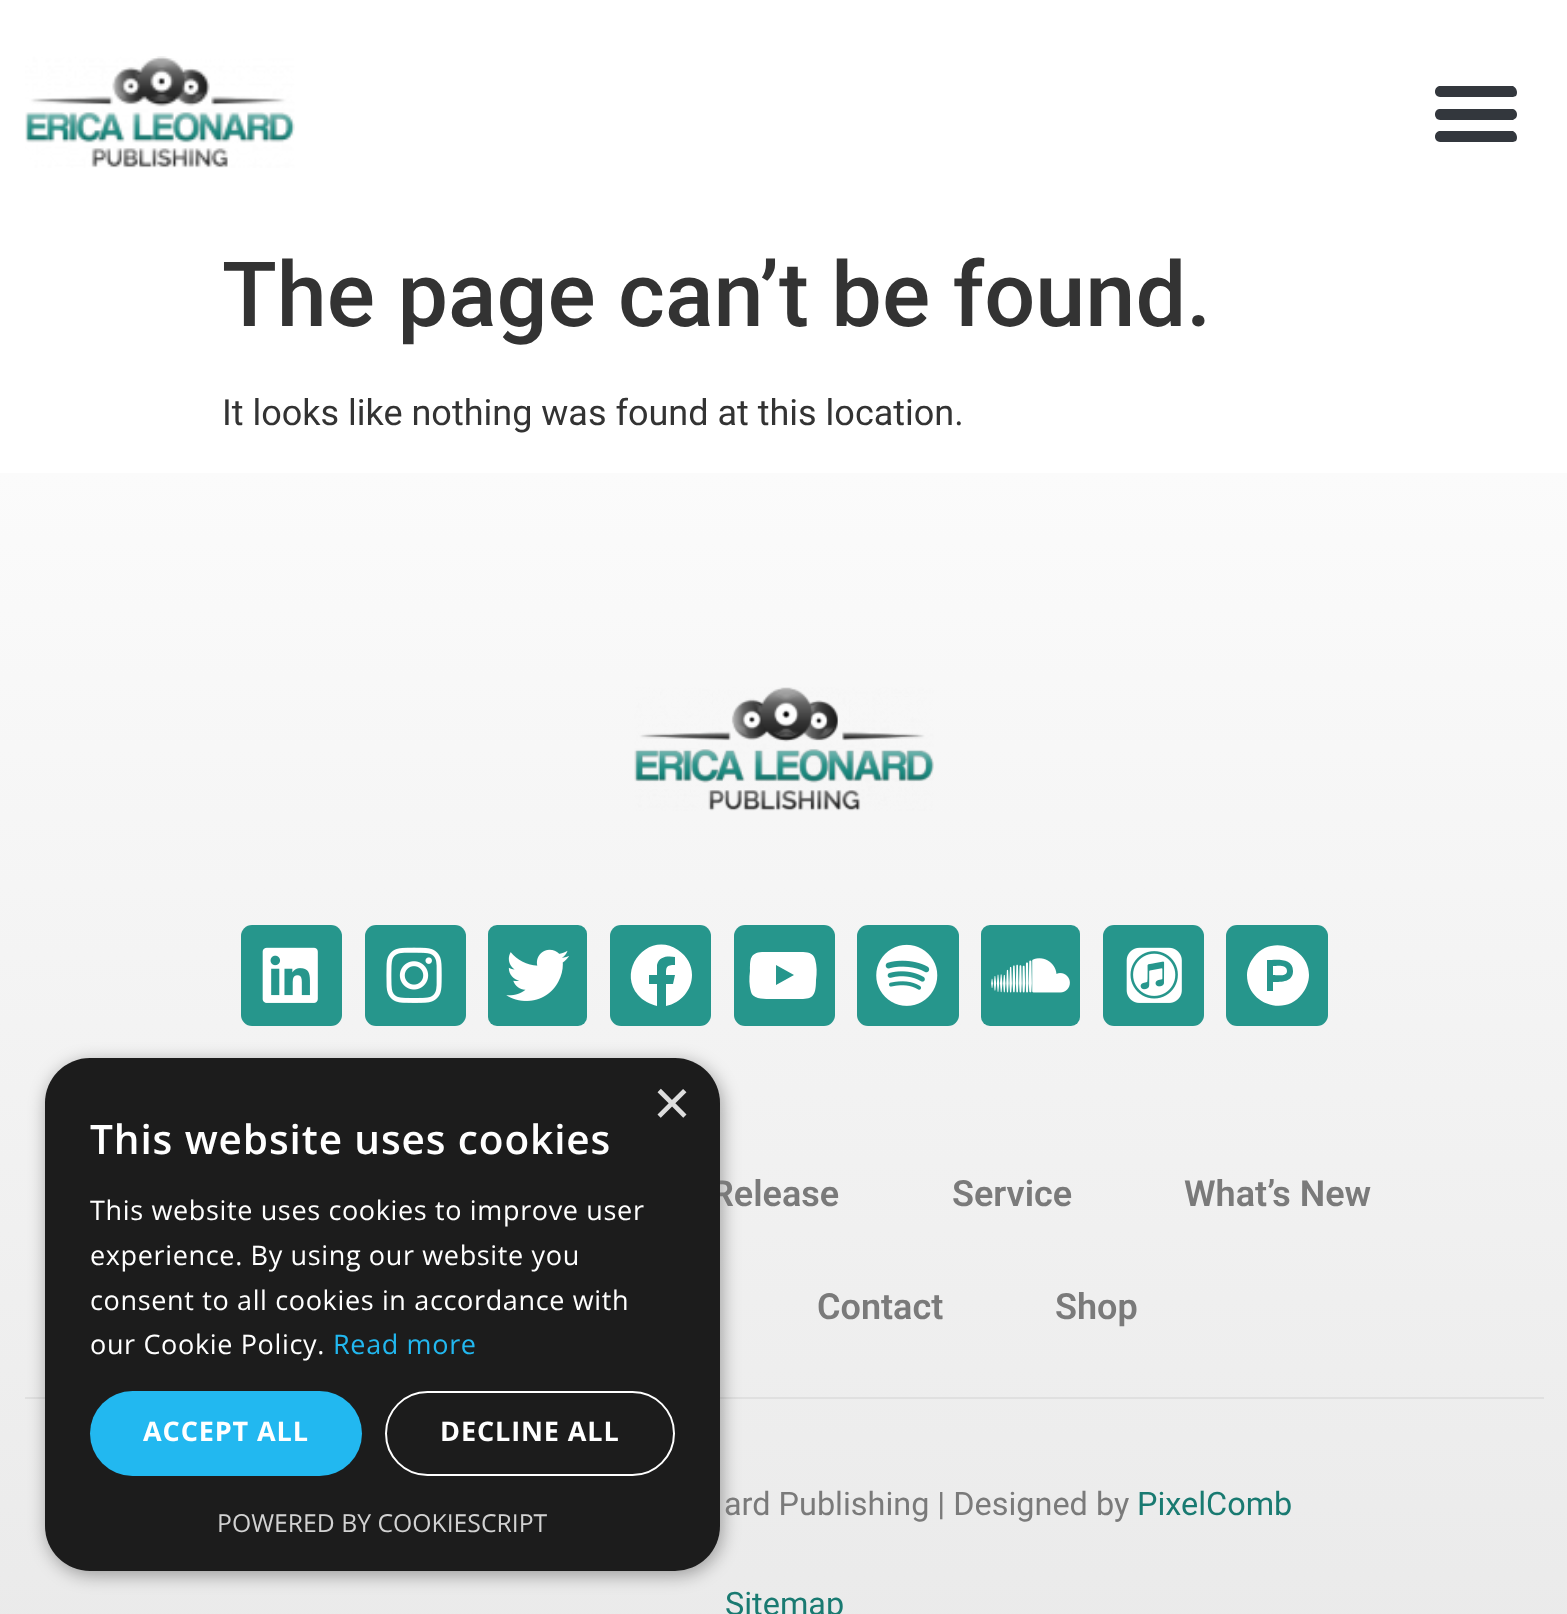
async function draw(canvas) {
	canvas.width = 1567;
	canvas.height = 1614;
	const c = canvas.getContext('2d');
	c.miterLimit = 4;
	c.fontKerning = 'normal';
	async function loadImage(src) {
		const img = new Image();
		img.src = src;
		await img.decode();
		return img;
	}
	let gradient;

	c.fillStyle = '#fff';
	c.fillRect(0, 0, 1567, 1614);
	c.drawImage(await loadImage('img1.png'), 25, 56, 270, 112);
	c.fillStyle = '#33373d';
	c.beginPath();
	c.moveTo(1440, 97);
	c.lineTo(1513, 97);
	c.lineTo(1516, 96);
	c.bezierCurveTo(1518, 93, 1517, 88, 1513, 86);
	c.lineTo(1439, 86);
	c.bezierCurveTo(1433, 88, 1434, 97, 1440, 97);
	c.closePath();
	c.moveTo(1440, 120);
	c.lineTo(1513, 120);
	c.lineTo(1516, 118);
	c.bezierCurveTo(1518, 115, 1517, 110, 1513, 109);
	c.lineTo(1439, 109);
	c.bezierCurveTo(1433, 110, 1434, 120, 1440, 120);
	c.closePath();
	c.moveTo(1440, 142);
	c.lineTo(1513, 142);
	c.lineTo(1516, 141);
	c.bezierCurveTo(1518, 138, 1517, 133, 1513, 131);
	c.lineTo(1439, 131);
	c.bezierCurveTo(1433, 133, 1434, 142, 1440, 142);
	c.closePath();
	c.fill();
	c.font = '500 90px Roboto';
	c.fillStyle = '#333';
	c.fillText('The page can’t be found.', 222, 326);
	c.font = '36px Roboto';
	c.fillText('It looks like nothing was found at this location.', 222, 425);
	gradient = c.createLinearGradient(784, 472, 784, 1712);
	gradient.addColorStop(0, '#fbfbfb');
	gradient.addColorStop(1, '#e9e9e9');
	c.fillStyle = gradient;
	c.fillRect(0, 473, 1567, 1141);
	c.fillStyle = '#e0e0e0';
	c.fillRect(25, 1397, 1519, 2);
	c.fillStyle = '#00000059';
	c.filter = 'blur(9px)';
	c.beginPath();
	c.roundRect(47, 1062, 675, 513, 45);
	c.fill();
	c.filter = 'none';
	c.font = '600 36px Roboto';
	c.fillStyle = '#7a7a7a';
	c.fillText('Release', 711, 1206);
	c.fillStyle = '#1c1c1c';
	c.beginPath();
	c.roundRect(45, 1058, 675, 513, 45);
	c.fill();
	c.font = '65px Liberation Sans';
	c.fillStyle = '#ddd';
	c.fillText('×', 653, 1125);
	c.letterSpacing = '0.9px';
	c.font = '600 40.5px Open Sans';
	c.fillStyle = '#fff';
	c.fillText('This website uses cookies', 90, 1154);
	c.letterSpacing = '0.65px';
	c.font = '27px Open Sans';
	for (const [text, x, y] of [
		['This website uses cookies to improve user', 90, 1220],
		['experience. By using our website you', 90, 1265],
		['consent to all cookies in accordance with', 90, 1310],
		['our Cookie Policy.', 90, 1354],
	]) {
		c.fillText(text, x, y);
	}
	c.fillStyle = '#22b8f0';
	c.fillText('Read more', 333, 1354);
	c.beginPath();
	c.roundRect(90, 1391, 272, 85, 42.5);
	c.fill();
	c.letterSpacing = '0.9px';
	c.font = 'bold 27px Open Sans';
	c.fillStyle = '#fff';
	c.fillText('ACCEPT ALL', 143, 1441);
	c.beginPath();
	c.roundRect(386, 1392, 288, 83, 41.5);
	c.strokeStyle = '#fff';
	c.lineWidth = 2;
	c.stroke();
	c.fillText('DECLINE ALL', 440, 1441);
	c.letterSpacing = '0px';
	c.font = '24.75px Open Sans';
	c.fillStyle = '#d2d2d2';
	c.fillText('POWERED BY COOKIESCRIPT', 217, 1532);
	c.drawImage(await loadImage('img2.png'), 634, 687, 300, 124);
	c.fillStyle = '#26968c';
	c.beginPath();
	c.roundRect(241, 925, 101, 101, 11);
	c.fill();
	c.drawImage(await loadImage('img3.png'), 262, 947, 56, 56);
	c.beginPath();
	c.roundRect(365, 925, 101, 101, 11);
	c.fill();
	c.drawImage(await loadImage('img4.png'), 386, 947, 56, 56);
	c.beginPath();
	c.roundRect(488, 925, 99, 101, 9);
	c.fill();
	c.drawImage(await loadImage('img5.png'), 506, 949, 63, 52);
	c.beginPath();
	c.roundRect(610, 925, 101, 101, 11);
	c.fill();
	c.fillStyle = '#fff';
	c.beginPath();
	c.moveTo(692, 975);
	c.bezierCurveTo(692, 990, 681, 1003, 666, 1006);
	c.lineTo(666, 984);
	c.lineTo(673, 984);
	c.lineTo(675, 975);
	c.lineTo(666, 975);
	c.bezierCurveTo(666, 967, 666, 965, 675, 965);
	c.lineTo(675, 957);
	c.bezierCurveTo(668, 956, 659, 956, 657, 965);
	c.lineTo(657, 975);
	c.lineTo(649, 975);
	c.lineTo(649, 984);
	c.lineTo(657, 984);
	c.lineTo(657, 1006);
	c.bezierCurveTo(650, 1004, 643, 1001, 638, 995);
	c.bezierCurveTo(616, 969, 649, 930, 678, 950);
	c.bezierCurveTo(687, 956, 692, 965, 692, 975);
	c.closePath();
	c.fill();
	c.fillStyle = '#26968c';
	c.beginPath();
	c.roundRect(734, 925, 101, 101, 11);
	c.fill();
	c.fillStyle = '#fff';
	c.beginPath();
	c.moveTo(815, 959);
	c.bezierCurveTo(817, 966, 817, 973, 816, 980);
	c.bezierCurveTo(816, 1001, 810, 999, 790, 999);
	c.lineTo(774, 999);
	c.bezierCurveTo(767, 999, 753, 1000, 751, 992);
	c.bezierCurveTo(749, 985, 749, 978, 750, 971);
	c.bezierCurveTo(750, 959, 750, 953, 762, 952);
	c.lineTo(777, 952);
	c.lineTo(797, 952);
	c.bezierCurveTo(803, 952, 813, 951, 815, 959);
	c.closePath();
	c.moveTo(776, 985);
	c.lineTo(794, 975);
	c.lineTo(776, 965);
	c.closePath();
	c.fill();
	c.fillStyle = '#26968c';
	c.beginPath();
	c.roundRect(857, 925, 102, 101, 11);
	c.fill();
	c.drawImage(await loadImage('img6.png'), 876, 944, 62, 62);
	c.beginPath();
	c.roundRect(981, 925, 99, 101, 9);
	c.fill();
	c.drawImage(await loadImage('img7.png'), 991, 958, 79, 35);
	c.beginPath();
	c.roundRect(1103, 925, 101, 101, 11);
	c.fill();
	c.drawImage(await loadImage('img8.png'), 1126, 947, 56, 56);
	c.beginPath();
	c.roundRect(1226, 925, 102, 101, 11);
	c.fill();
	c.fillStyle = '#fff';
	c.beginPath();
	c.moveTo(1287, 971);
	c.bezierCurveTo(1287, 977, 1277, 975, 1273, 975);
	c.lineTo(1273, 966);
	c.bezierCurveTo(1277, 966, 1287, 964, 1287, 971);
	c.closePath();
	c.moveTo(1309, 975);
	c.bezierCurveTo(1309, 982, 1306, 989, 1302, 994);
	c.bezierCurveTo(1285, 1017, 1247, 1004, 1247, 975);
	c.bezierCurveTo(1247, 969, 1250, 962, 1254, 957);
	c.bezierCurveTo(1271, 934, 1309, 947, 1309, 975);
	c.closePath();
	c.moveTo(1293, 971);
	c.bezierCurveTo(1293, 957, 1276, 960, 1267, 960);
	c.lineTo(1267, 991);
	c.lineTo(1273, 991);
	c.lineTo(1273, 982);
	c.bezierCurveTo(1282, 982, 1293, 982, 1293, 971);
	c.closePath();
	c.fill();
	c.font = '600 36px Roboto';
	c.fillStyle = '#7a7a7a';
	for (const [text, x, y] of [
		['Service', 952, 1206],
		['What’s New', 1184, 1206],
		['Contact', 817, 1319],
		['Shop', 1055, 1319],
	]) {
		c.fillText(text, x, y);
	}
	c.font = '32.4px Roboto';
	c.fillText('ard Publishing | Designed by', 724, 1515);
	c.fillStyle = '#197a71';
	c.fillText('PixelComb', 1137, 1515);
	c.fillText('Sitemap', 725, 1615);
}

draw(document.querySelector('canvas'));
